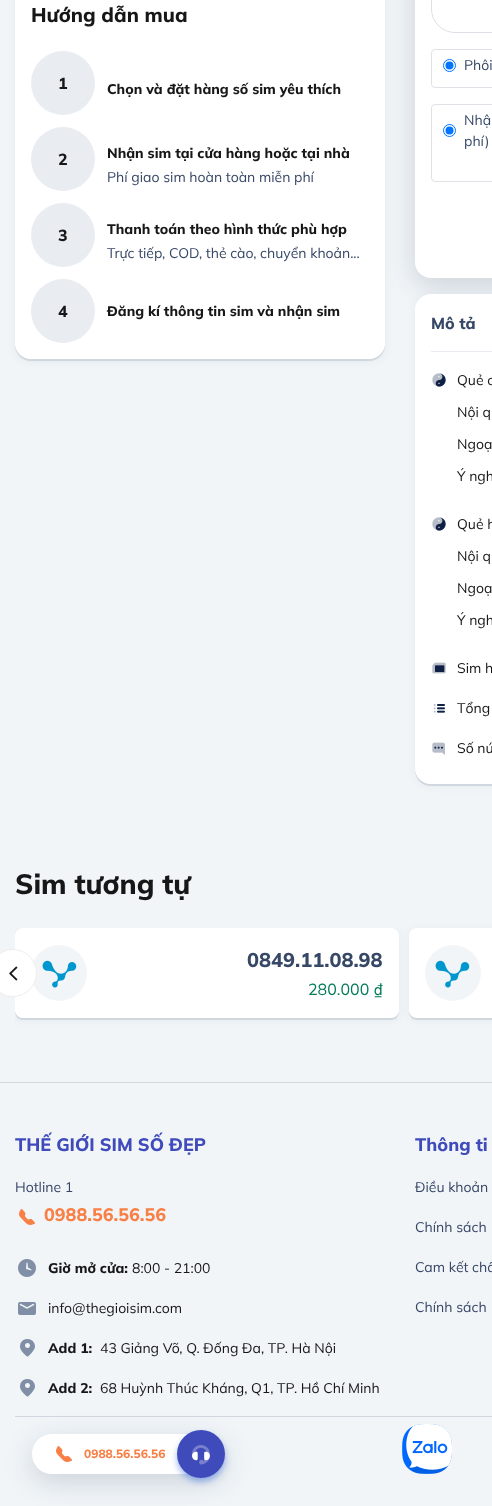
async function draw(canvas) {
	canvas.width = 492;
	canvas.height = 1506;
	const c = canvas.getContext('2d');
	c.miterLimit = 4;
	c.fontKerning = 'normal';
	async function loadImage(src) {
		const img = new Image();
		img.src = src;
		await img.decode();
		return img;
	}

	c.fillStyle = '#f1f5f8';
	c.fillRect(0, 0, 492, 1506);
	c.fillStyle = '#0e20450f';
	c.filter = 'blur(4px)';
	c.beginPath();
	c.roundRect(15, -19, 370, 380, 16);
	c.fill();
	c.filter = 'none';
	c.fillStyle = '#d1d7df';
	c.beginPath();
	c.moveTo(15, 343);
	c.lineTo(15, 345);
	c.bezierCurveTo(15, 354, 22, 361, 31, 361);
	c.lineTo(369, 361);
	c.bezierCurveTo(378, 361, 385, 354, 385, 345);
	c.lineTo(385, 343);
	c.bezierCurveTo(385, 352, 378, 359, 369, 359);
	c.lineTo(31, 359);
	c.bezierCurveTo(22, 359, 15, 352, 15, 343);
	c.closePath();
	c.fill();
	c.fillStyle = '#fff';
	c.beginPath();
	c.roundRect(15, -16, 370, 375, 16);
	c.fill();
	c.font = '800 20px Mulish';
	c.fillStyle = '#171717';
	c.fillText('Hướng dẫn mua', 31, 22);
	c.fillStyle = '#e9edf1';
	c.beginPath();
	c.arc(63, 83, 32, 0, 2 * Math.PI);
	c.fill();
	c.font = '800 16px Mulish';
	c.fillStyle = '#171717';
	c.fillText('1', 58, 89);
	c.font = '800 14px Mulish';
	c.fillText('Chọn và đặt hàng số sim yêu thích', 107, 94);
	c.fillStyle = '#e9edf1';
	c.beginPath();
	c.arc(63, 159, 32, 0, 2 * Math.PI);
	c.fill();
	c.font = '800 16px Mulish';
	c.fillStyle = '#171717';
	c.fillText('2', 58, 165);
	c.font = '800 14px Mulish';
	c.fillText('Nhận sim tại cửa hàng hoặc tại nhà', 107, 158);
	c.font = '14px Mulish';
	c.fillStyle = '#374766';
	c.fillText('Phí giao sim hoàn toàn miễn phí', 107, 182);
	c.fillStyle = '#e9edf1';
	c.beginPath();
	c.arc(63, 235, 32, 0, 2 * Math.PI);
	c.fill();
	c.font = '800 16px Mulish';
	c.fillStyle = '#171717';
	c.fillText('3', 58, 241);
	c.font = '800 14px Mulish';
	c.fillText('Thanh toán theo hình thức phù hợp', 107, 234);
	c.font = '14px Mulish';
	c.fillStyle = '#374766';
	c.fillText('Trực tiếp, COD, thẻ cào, chuyển khoản...', 107, 258);
	c.fillStyle = '#e9edf1';
	c.beginPath();
	c.arc(63, 311, 32, 0, 2 * Math.PI);
	c.fill();
	c.font = '800 16px Mulish';
	c.fillStyle = '#171717';
	c.fillText('4', 58, 317);
	c.font = '800 14px Mulish';
	c.fillText('Đăng kí thông tin sim và nhận sim', 107, 316);
	c.fillStyle = '#0e204529';
	c.filter = 'blur(14px)';
	c.beginPath();
	c.roundRect(415, -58, 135, 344, 16);
	c.fill();
	c.filter = 'none';
	c.fillStyle = '#fff';
	c.beginPath();
	c.roundRect(415, -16, 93, 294, 16);
	c.fill();
	c.beginPath();
	c.roundRect(431.5, -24.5, 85, 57, 23.5);
	c.strokeStyle = '#dde1e7';
	c.stroke();
	c.beginPath();
	c.roundRect(431.5, 49.5, 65, 38, 3.5);
	c.strokeStyle = '#dee2e6';
	c.stroke();
	c.beginPath();
	c.arc(449.5, 65.5, 6, 0, 2 * Math.PI);
	c.strokeStyle = '#0075ff';
	c.stroke();
	c.fillStyle = '#0075ff';
	c.beginPath();
	c.arc(449.5, 65.5, 4, 0, 2 * Math.PI);
	c.fill();
	c.font = '14px Mulish';
	c.fillStyle = '#374766';
	c.fillText('Phôi', 464, 70);
	c.beginPath();
	c.roundRect(431.5, 104.5, 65, 77, 3.5);
	c.strokeStyle = '#dee2e6';
	c.stroke();
	c.beginPath();
	c.arc(449.5, 130.5, 6, 0, 2 * Math.PI);
	c.strokeStyle = '#0075ff';
	c.stroke();
	c.fillStyle = '#0075ff';
	c.beginPath();
	c.arc(449.5, 130.5, 4, 0, 2 * Math.PI);
	c.fill();
	c.fillStyle = '#374766';
	c.fillText('Nhậ', 464, 125);
	c.fillText('phí)', 464, 146);
	c.fillStyle = '#0e20450f';
	c.filter = 'blur(4px)';
	c.beginPath();
	c.roundRect(415, 296, 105, 490, 16);
	c.fill();
	c.filter = 'none';
	c.fillStyle = '#d1d7df';
	c.beginPath();
	c.moveTo(415, 768);
	c.lineTo(415, 770);
	c.bezierCurveTo(415, 779, 422, 786, 431, 786);
	c.lineTo(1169, 786);
	c.bezierCurveTo(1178, 786, 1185, 779, 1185, 770);
	c.lineTo(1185, 768);
	c.bezierCurveTo(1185, 777, 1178, 784, 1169, 784);
	c.lineTo(431, 784);
	c.bezierCurveTo(422, 784, 415, 777, 415, 768);
	c.closePath();
	c.fill();
	c.fillStyle = '#fff';
	c.beginPath();
	c.roundRect(415, 294, 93, 490, 16);
	c.fill();
	c.font = '800 16px Mulish';
	c.fillStyle = '#374766';
	c.fillText('Mô tả', 431, 329);
	c.fillStyle = '#e9edf1';
	c.fillRect(431, 351, 61, 1);
	c.drawImage(await loadImage('img1.png'), 432, 373, 14, 14);
	c.font = '14px Mulish';
	c.fillStyle = '#171717';
	for (const [text, x, y] of [
		['Quẻ c', 457, 385],
		['Nội q', 457, 417],
		['Ngoạ', 457, 449],
		['Ý ngh', 457, 481],
	]) {
		c.fillText(text, x, y);
	}
	c.drawImage(await loadImage('img1.png'), 432, 517, 14, 14);
	for (const [text, x, y] of [
		['Quẻ h', 457, 529],
		['Nội q', 457, 561],
		['Ngoạ', 457, 593],
		['Ý ngh', 457, 625],
	]) {
		c.fillText(text, x, y);
	}
	c.drawImage(await loadImage('img2.png'), 432, 662, 14, 12);
	c.fillText('Sim h', 457, 673);
	c.drawImage(await loadImage('img3.png'), 433, 704, 12, 9);
	c.fillText('Tổng', 457, 713);
	c.drawImage(await loadImage('img4.png'), 432, 742, 13, 13);
	c.fillText('Số nú', 457, 753);
	c.font = '800 28px Mulish';
	c.fillText('Sim tương tự', 15, 894);
	c.save();
	c.beginPath();
	c.rect(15, 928, 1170, 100);
	c.clip();
	c.fillStyle = '#0e20450f';
	c.filter = 'blur(4px)';
	c.beginPath();
	c.roundRect(15, 930, 384, 90, 8);
	c.fill();
	c.filter = 'none';
	c.restore();
	c.fillStyle = '#d1d7df';
	c.beginPath();
	c.moveTo(15, 1010);
	c.bezierCurveTo(15, 1015, 17, 1020, 23, 1020);
	c.lineTo(391, 1020);
	c.bezierCurveTo(397, 1020, 399, 1015, 399, 1010);
	c.bezierCurveTo(399, 1014, 395, 1018, 391, 1018);
	c.lineTo(23, 1018);
	c.bezierCurveTo(19, 1018, 15, 1014, 15, 1010);
	c.closePath();
	c.fill();
	c.fillStyle = '#fff';
	c.beginPath();
	c.roundRect(15, 928, 384, 90, 8);
	c.fill();
	c.fillStyle = '#f2f5f8';
	c.beginPath();
	c.arc(59, 973, 28, 0, 2 * Math.PI);
	c.fill();
	c.fillStyle = '#fff';
	c.beginPath();
	c.arc(13, 973, 23.5, 0, 2 * Math.PI);
	c.fill();
	c.strokeStyle = '#eee';
	c.stroke();
	c.drawImage(await loadImage('img5.png'), 9, 966, 9, 15);
	c.drawImage(await loadImage('img6.png'), 42, 960, 35, 28);
	c.font = '800 20px Mulish';
	c.fillStyle = '#374766';
	c.fillText('0849.11.08.98', 247, 967);
	c.font = '16px Mulish';
	c.fillStyle = '#007a57';
	c.fillText('280.000 ₫', 308, 995);
	c.fillStyle = '#0e20450f';
	c.filter = 'blur(4px)';
	c.beginPath();
	c.roundRect(409, 930, 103, 90, 8);
	c.fill();
	c.filter = 'none';
	c.fillStyle = '#d1d7df';
	c.beginPath();
	c.moveTo(409, 1010);
	c.bezierCurveTo(409, 1015, 411, 1020, 417, 1020);
	c.lineTo(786, 1020);
	c.bezierCurveTo(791, 1019, 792, 1014, 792, 1010);
	c.bezierCurveTo(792, 1014, 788, 1018, 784, 1018);
	c.lineTo(417, 1018);
	c.bezierCurveTo(413, 1018, 409, 1014, 409, 1010);
	c.closePath();
	c.fill();
	c.fillStyle = '#fff';
	c.beginPath();
	c.roundRect(409, 928, 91, 90, 8);
	c.fill();
	c.fillStyle = '#f2f5f8';
	c.beginPath();
	c.arc(453, 973, 28, 0, 2 * Math.PI);
	c.fill();
	c.drawImage(await loadImage('img6.png'), 435, 960, 35, 28);
	c.fillStyle = '#d1d7df';
	c.fillRect(0, 1082, 492, 1);
	c.font = '800 18px Mulish';
	c.fillStyle = '#3f4bba';
	c.fillText('THẾ GIỚI SIM SỐ ĐẸP', 15, 1151);
	c.font = '14px Mulish';
	c.fillStyle = '#374766';
	c.fillText('Hotline 1', 15, 1192);
	c.drawImage(await loadImage('img7.png'), 19, 1209, 16, 16);
	c.font = '800 18px Mulish';
	c.fillStyle = '#f88047';
	c.fillText('0988.56.56.56', 44, 1221);
	c.drawImage(await loadImage('img8.png'), 18, 1259, 18, 18);
	c.font = '800 14px Mulish';
	c.fillStyle = '#171717';
	c.fillText('Giờ mở cửa:', 48, 1273);
	c.font = '14px Mulish';
	c.fillText('8:00 - 21:00', 132, 1273);
	c.drawImage(await loadImage('img9.png'), 18, 1302, 18, 13);
	c.fillText('info@thegioisim.com', 48, 1313);
	c.drawImage(await loadImage('img10.png'), 20, 1339, 15, 18);
	c.font = '800 14px Mulish';
	c.fillText('Add 1:', 48, 1353);
	c.font = '14px Mulish';
	c.fillText('43 Giảng Võ, Q. Đống Đa, TP. Hà Nội', 100, 1353);
	c.drawImage(await loadImage('img10.png'), 20, 1379, 15, 18);
	c.font = '800 14px Mulish';
	c.fillText('Add 2:', 48, 1393);
	c.font = '14px Mulish';
	c.fillText('68 Huỳnh Thúc Kháng, Q1, TP. Hồ Chí Minh', 100, 1393);
	c.font = '800 18px Mulish';
	c.fillStyle = '#3f4bba';
	c.fillText('Thông ti', 415, 1151);
	c.font = '14px Mulish';
	c.fillStyle = '#374766';
	for (const [text, x, y] of [
		['Điều khoản', 415, 1192],
		['Chính sách', 415, 1232],
		['Cam kết chấ', 415, 1272],
		['Chính sách', 415, 1312],
	]) {
		c.fillText(text, x, y);
	}
	c.fillStyle = '#d1d7df';
	c.fillRect(15, 1416, 477, 1);
	c.fillStyle = '#0e204529';
	c.filter = 'blur(14px)';
	c.beginPath();
	c.roundRect(32, 1442, 193, 40, 20);
	c.fill();
	c.filter = 'none';
	c.fillStyle = '#fff';
	c.beginPath();
	c.roundRect(32, 1434, 193, 40, 20);
	c.fill();
	c.drawImage(await loadImage('img11.png'), 56, 1446, 16, 16);
	c.font = '800 12px Mulish';
	c.fillStyle = '#f88047';
	c.fillText('0988.56.56.56', 84, 1458);
	c.fillStyle = '#3d73dd80';
	c.filter = 'blur(3px)';
	c.beginPath();
	c.roundRect(177, 1434, 48, 48, 24);
	c.fill();
	c.filter = 'none';
	c.fillStyle = '#3f4bba';
	c.beginPath();
	c.arc(201, 1454, 24, 0, 2 * Math.PI);
	c.fill();
	c.drawImage(await loadImage('img12.png'), 192, 1445, 18, 20);
	c.drawImage(await loadImage('img13.png'), 402, 1424, 50, 50);
}

draw(document.querySelector('canvas'));
